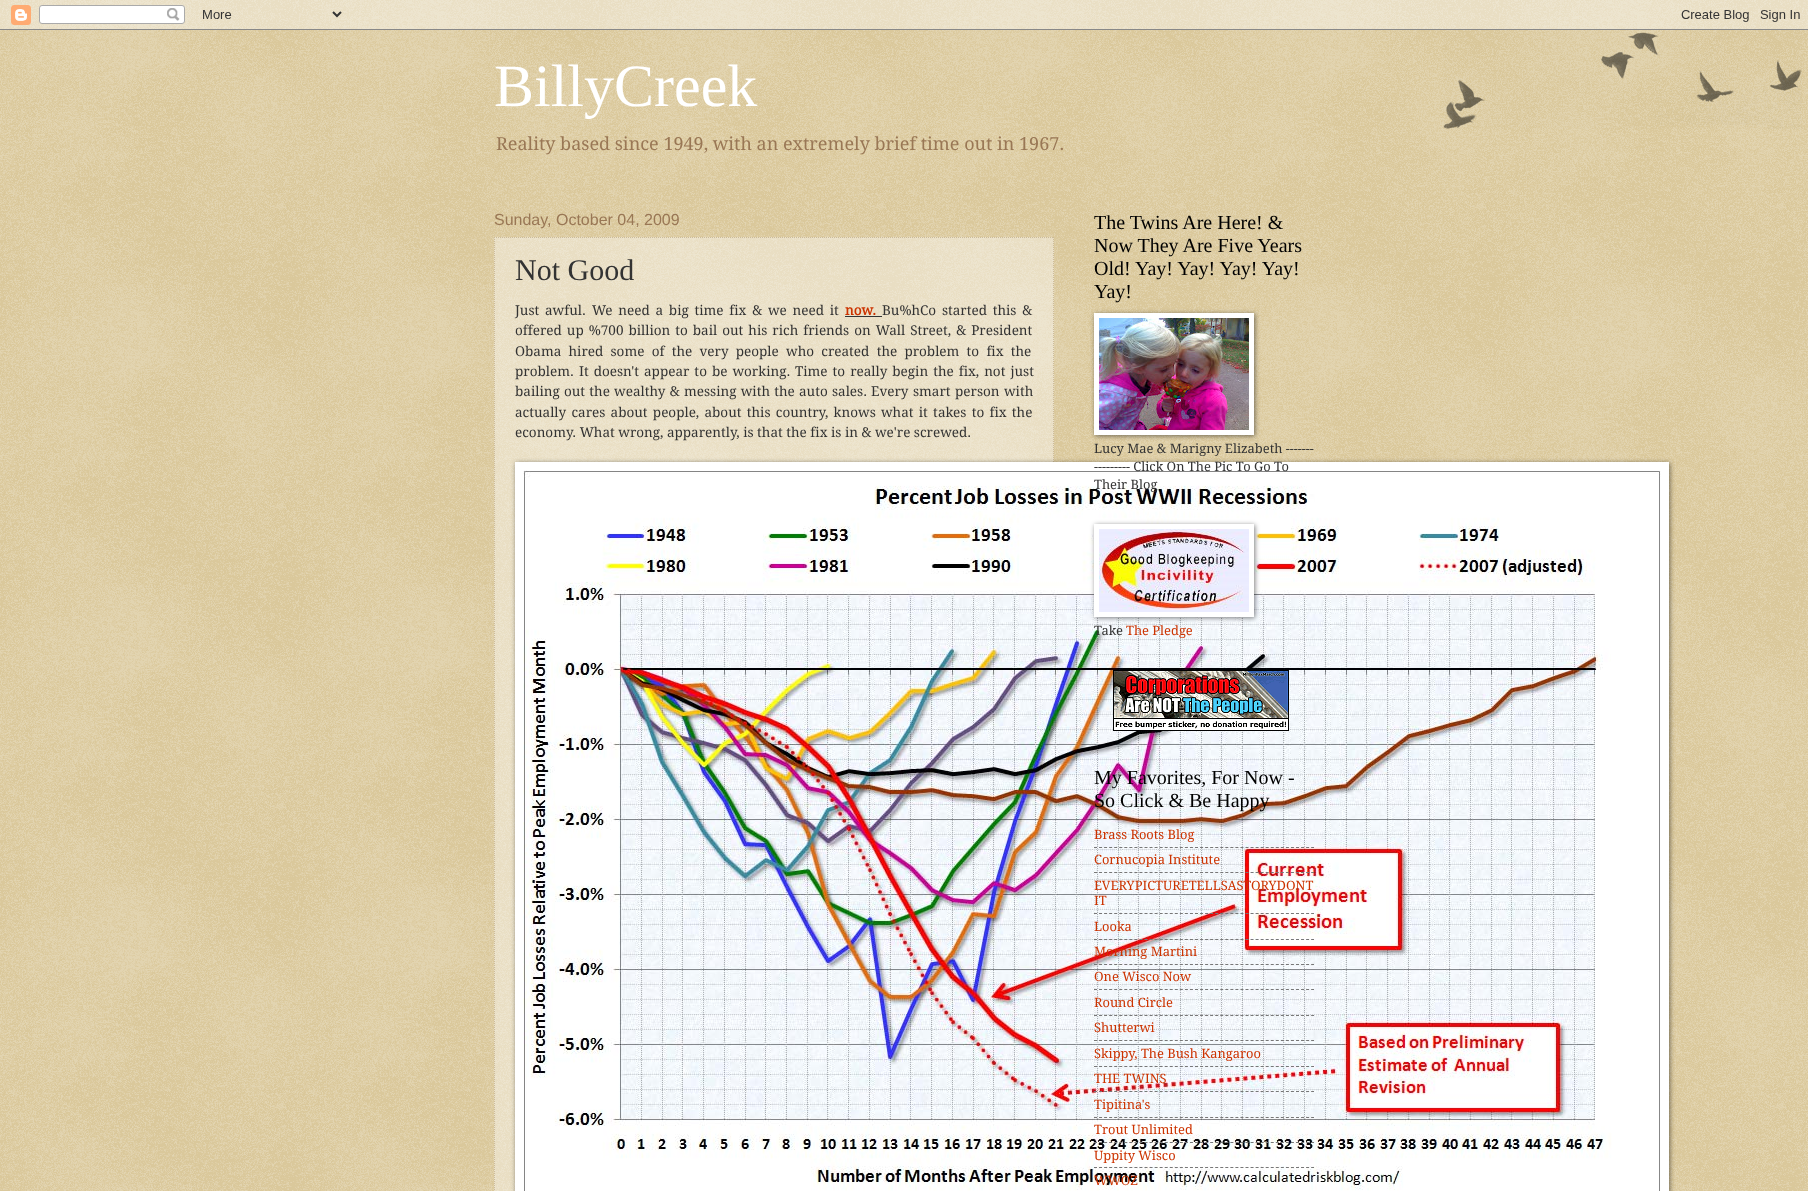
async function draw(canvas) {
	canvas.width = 1808;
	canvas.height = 1191;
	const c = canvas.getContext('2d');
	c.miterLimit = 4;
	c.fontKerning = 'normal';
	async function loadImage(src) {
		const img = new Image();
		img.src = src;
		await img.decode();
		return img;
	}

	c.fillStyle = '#c0a154';
	c.fillRect(0, 0, 1808, 1191);
	c.drawImage(await loadImage('img1.png'), 0, 0, 1808, 1191);
	c.drawImage(await loadImage('img2.png'), 0, 0, 1808, 30);
	c.font = '60px Liberation Serif';
	c.fillStyle = '#fff';
	c.fillText('BillyCreek', 494, 106);
	c.font = '18px Droid Serif';
	c.fillStyle = '#975';
	c.fillText('Reality based since 1949, with an extremely brief time out in 1967.', 496, 150);
	c.font = '16px Liberation Sans';
	c.fillText('Sunday, October 04, 2009', 494, 225);
	c.fillStyle = '#ffffff66';
	c.fillRect(494, 237, 560, 954);
	c.beginPath();
	c.moveTo(494, 237.5);
	c.lineTo(1054, 237.5);
	c.strokeStyle = '#cb9';
	c.setLineDash([1, 1]);
	c.stroke();
	c.beginPath();
	c.moveTo(1053.5, 237);
	c.lineTo(1053.5, 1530);
	c.stroke();
	c.beginPath();
	c.moveTo(494.5, 237);
	c.lineTo(494.5, 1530);
	c.stroke();
	c.font = '30px Liberation Serif';
	c.fillStyle = '#333';
	c.fillText('Not Good', 515, 280);
	c.wordSpacing = '2.25px';
	c.font = '13.5px Droid Serif';
	c.fillText('Just awful.', 515, 315);
	c.fillText('We need a big time fix & we need it', 592, 315);
	c.wordSpacing = '0px';
	c.font = 'bold 13.5px Droid Serif';
	c.fillStyle = '#c30';
	c.fillText('now.', 845, 315);
	c.fillStyle = '#333';
	c.fillRect(845, 316, 37, 1);
	c.wordSpacing = '2.25px';
	c.font = '13.5px Droid Serif';
	c.fillText('Bu%hCo started this &', 882, 315);
	c.wordSpacing = '1.5px';
	c.fillText('offered up %700 billion to bail out his rich friends on Wall Street, & President', 515, 335);
	c.wordSpacing = '3.75px';
	c.fillText('Obama hired some of the very people who created the problem to fix the', 515, 356);
	c.wordSpacing = '0px';
	c.fillText('problem.', 515, 376);
	c.wordSpacing = '1.5px';
	c.fillText('It doesn\'t appear to be working.', 579, 376);
	c.fillText('Time to really begin the fix, not just', 795, 376);
	c.wordSpacing = '0.75px';
	c.fillText('bailing out the wealthy & messing with the auto sales.', 515, 396);
	c.wordSpacing = '1px';
	c.fillText('Every smart person with', 871, 396);
	c.wordSpacing = '1.75px';
	c.fillText('actually cares about people, about this country, knows what it takes to fix the', 515, 417);
	c.wordSpacing = '0px';
	c.fillText('economy. What wrong, apparently, is that the fix is in & we\'re screwed.', 515, 437);
	c.fillStyle = '#00000080';
	c.filter = 'blur(2.5px)';
	c.beginPath();
	c.rect(516, 463, 1154, 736);
	c.fill();
	c.filter = 'none';
	c.fillStyle = '#fff';
	c.fillRect(515, 462, 1154, 729);
	c.drawImage(await loadImage('img3.png'), 523, 470, 1138, 721);
	c.font = '20px Liberation Serif';
	c.fillStyle = '#000';
	for (const [text, x, y] of [
		['The Twins Are Here! &', 1094, 229],
		['Now They Are Five Years', 1094, 252],
		['Old!', 1094, 275],
		['Yay! Yay! Yay! Yay!', 1135, 275],
		['Yay!', 1094, 298],
	]) {
		c.fillText(text, x, y);
	}
	c.fillStyle = '#00000080';
	c.filter = 'blur(2.5px)';
	c.beginPath();
	c.rect(1095, 314, 160, 122);
	c.fill();
	c.filter = 'none';
	c.fillStyle = '#fff';
	c.fillRect(1094, 313, 160, 122);
	c.drawImage(await loadImage('img4.png'), 1099, 318, 150, 112);
	c.font = '12.9px Droid Serif';
	c.fillStyle = '#333';
	for (const [text, x, y] of [
		['Lucy Mae & Marigny Elizabeth -------', 1094, 453],
		['--------- Click On The Pic To Go To', 1094, 471],
		['Their Blog', 1094, 489],
	]) {
		c.fillText(text, x, y);
	}
	c.fillStyle = '#00000080';
	c.filter = 'blur(2.5px)';
	c.beginPath();
	c.rect(1095, 525, 160, 93);
	c.fill();
	c.filter = 'none';
	c.fillStyle = '#fff';
	c.fillRect(1094, 524, 160, 93);
	c.drawImage(await loadImage('img5.png'), 1099, 529, 150, 83);
	c.fillStyle = '#333';
	c.fillText('Take', 1094, 635);
	c.fillStyle = '#c30';
	c.fillText('The Pledge', 1126, 635);
	c.drawImage(await loadImage('img6.png'), 1113, 670, 176, 61);
	c.font = '20px Liberation Serif';
	c.fillStyle = '#000';
	c.fillText('My Favorites, For Now -', 1094, 784);
	c.fillText('So Click & Be Happy', 1094, 807);
	c.font = '12.9px Droid Serif';
	c.fillStyle = '#c30';
	c.fillText('Brass Roots Blog', 1094, 839);
	c.beginPath();
	c.moveTo(1094, 847.5);
	c.lineTo(1314, 847.5);
	c.strokeStyle = '#777';
	c.setLineDash([3, 2.05]);
	c.stroke();
	c.fillText('Cornucopia Institute', 1094, 864);
	c.beginPath();
	c.moveTo(1094, 872.5);
	c.lineTo(1314, 872.5);
	c.stroke();
	c.fillText('EVERYPICTURETELLSASTORYDONT', 1094, 890);
	c.fillText('IT', 1094, 905);
	c.beginPath();
	c.moveTo(1094, 913.5);
	c.lineTo(1314, 913.5);
	c.stroke();
	c.fillText('Looka', 1094, 931);
	c.beginPath();
	c.moveTo(1094, 939.5);
	c.lineTo(1314, 939.5);
	c.stroke();
	c.fillText('Morning Martini', 1094, 956);
	c.beginPath();
	c.moveTo(1094, 964.5);
	c.lineTo(1314, 964.5);
	c.stroke();
	c.fillText('One Wisco Now', 1094, 981);
	c.beginPath();
	c.moveTo(1094, 989.5);
	c.lineTo(1314, 989.5);
	c.stroke();
	c.fillText('Round Circle', 1094, 1007);
	c.beginPath();
	c.moveTo(1094, 1015.5);
	c.lineTo(1314, 1015.5);
	c.stroke();
	c.fillText('Shutterwi', 1094, 1032);
	c.beginPath();
	c.moveTo(1094, 1040.5);
	c.lineTo(1314, 1040.5);
	c.stroke();
	c.fillText('Skippy, The Bush Kangaroo', 1094, 1058);
	c.beginPath();
	c.moveTo(1094, 1066.5);
	c.lineTo(1314, 1066.5);
	c.stroke();
	c.fillText('THE TWINS', 1094, 1083);
	c.beginPath();
	c.moveTo(1094, 1091.5);
	c.lineTo(1314, 1091.5);
	c.stroke();
	c.fillText('Tipitina\'s', 1094, 1109);
	c.beginPath();
	c.moveTo(1094, 1117.5);
	c.lineTo(1314, 1117.5);
	c.stroke();
	c.fillText('Trout Unlimited', 1094, 1134);
	c.beginPath();
	c.moveTo(1094, 1142.5);
	c.lineTo(1314, 1142.5);
	c.stroke();
	c.fillText('Uppity Wisco', 1094, 1160);
	c.beginPath();
	c.moveTo(1094, 1167.5);
	c.lineTo(1314, 1167.5);
	c.stroke();
	c.fillText('WWOZ', 1094, 1185);
	c.drawImage(await loadImage('img7.png'), 1443, 32, 359, 97);
}

draw(document.querySelector('canvas'));
